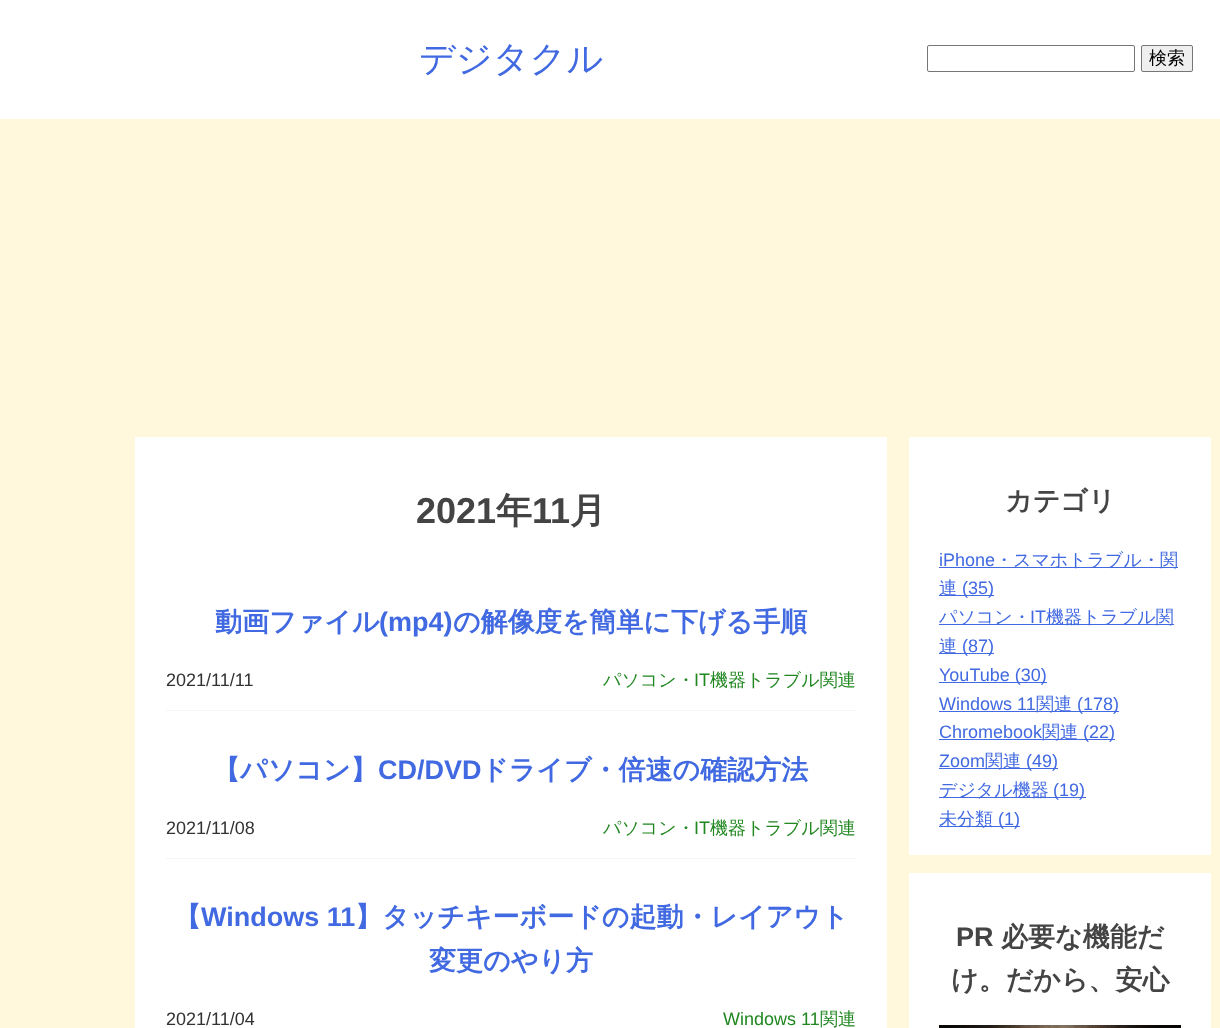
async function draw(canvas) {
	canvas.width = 1220;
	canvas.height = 1028;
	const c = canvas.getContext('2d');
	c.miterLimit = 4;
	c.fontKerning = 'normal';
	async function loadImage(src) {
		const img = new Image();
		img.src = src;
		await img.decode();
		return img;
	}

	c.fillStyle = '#fff8dc';
	c.fillRect(0, 0, 1220, 1028);
	c.fillStyle = '#fff';
	c.filter = 'blur(0.5px)';
	c.beginPath();
	c.rect(-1, -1, 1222, 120);
	c.fill();
	c.filter = 'none';
	c.font = '500 36px WenQuanYi Zen Hei';
	c.fillStyle = '#4169e1';
	c.fillText('デジタクル', 419, 71);
	c.beginPath();
	c.roundRect(927.5, 45.5, 207, 26, 1.5);
	c.strokeStyle = '#767676';
	c.stroke();
	c.fillStyle = '#efefef';
	c.beginPath();
	c.roundRect(1141.5, 45.5, 51, 26, 1.5);
	c.fill();
	c.stroke();
	c.font = '500 18px WenQuanYi Zen Hei';
	c.fillStyle = '#000';
	c.fillText('検索', 1149, 64);
	c.fillStyle = '#fff';
	c.filter = 'blur(0.5px)';
	c.beginPath();
	c.rect(135, 437, 752, 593);
	c.fill();
	c.filter = 'none';
	c.font = 'bold 36px Liberation Sans';
	c.fillStyle = '#444';
	c.fillText('2021', 416, 523);
	c.font = 'bold 36px WenQuanYi Zen Hei';
	c.fillText('年', 496, 523);
	c.font = 'bold 36px Liberation Sans';
	c.fillText('11', 532, 523);
	c.font = 'bold 36px WenQuanYi Zen Hei';
	c.fillText('月', 570, 523);
	c.fillStyle = '#f5f5f5';
	c.fillRect(166, 710, 690, 1);
	c.font = 'bold 27px WenQuanYi Zen Hei';
	c.fillStyle = '#4169e1';
	c.fillText('動画ファイル', 215, 631);
	c.font = 'bold 27px Liberation Sans';
	c.fillText('(mp4)', 379, 631);
	c.font = 'bold 27px WenQuanYi Zen Hei';
	c.fillText('の解像度を簡単に下げる手順', 453, 631);
	c.font = '18px Liberation Sans';
	c.fillStyle = '#333';
	c.fillText('2021/11/11', 166, 686);
	c.font = '500 18px WenQuanYi Zen Hei';
	c.fillStyle = '#218721';
	c.fillText('パソコン・', 603, 686);
	c.font = '18px Liberation Sans';
	c.fillText('IT', 694, 686);
	c.font = '500 18px WenQuanYi Zen Hei';
	c.fillText('機器トラブル関連', 710, 686);
	c.fillStyle = '#f5f5f5';
	c.fillRect(166, 858, 690, 1);
	c.font = 'bold 27px WenQuanYi Zen Hei';
	c.fillStyle = '#4169e1';
	c.fillText('【パソコン】', 213, 779);
	c.font = 'bold 27px Liberation Sans';
	c.fillText('CD/DVD', 378, 779);
	c.font = 'bold 27px WenQuanYi Zen Hei';
	c.fillText('ドライブ・倍速の確認方法', 481, 779);
	c.font = '18px Liberation Sans';
	c.fillStyle = '#333';
	c.fillText('2021/11/08', 166, 834);
	c.font = '500 18px WenQuanYi Zen Hei';
	c.fillStyle = '#218721';
	c.fillText('パソコン・', 603, 834);
	c.font = '18px Liberation Sans';
	c.fillText('IT', 694, 834);
	c.font = '500 18px WenQuanYi Zen Hei';
	c.fillText('機器トラブル関連', 710, 834);
	c.font = 'bold 27px WenQuanYi Zen Hei';
	c.fillStyle = '#4169e1';
	c.fillText('【', 174, 926);
	c.font = 'bold 27px Liberation Sans';
	c.fillText('Windows 11', 201, 926);
	c.font = 'bold 27px WenQuanYi Zen Hei';
	c.fillText('】タッチキーボードの起動・レイアウト', 355, 926);
	c.fillText('変更のやり方', 429, 970);
	c.font = '18px Liberation Sans';
	c.fillStyle = '#333';
	c.fillText('2021/11/04', 166, 1025);
	c.fillStyle = '#218721';
	c.fillText('Windows 11', 723, 1025);
	c.font = '500 18px WenQuanYi Zen Hei';
	c.fillText('関連', 820, 1025);
	c.fillStyle = '#fff';
	c.filter = 'blur(0.5px)';
	c.beginPath();
	c.rect(909, 437, 302, 418);
	c.fill();
	c.filter = 'none';
	c.font = 'bold 27px WenQuanYi Zen Hei';
	c.fillStyle = '#444';
	c.fillText('カテゴリ', 1005, 510);
	c.font = '18px Liberation Sans';
	c.fillStyle = '#4169e1';
	c.fillText('iPhone', 939, 566);
	c.fillRect(939, 567, 239, 1);
	c.font = '500 18px WenQuanYi Zen Hei';
	c.fillText('・スマホトラブル・関', 995, 566);
	c.fillRect(939, 595, 55, 1);
	c.fillText('連', 939, 594);
	c.font = '18px Liberation Sans';
	c.fillText('(35)', 962, 594);
	c.fillRect(939, 624, 235, 1);
	c.font = '500 18px WenQuanYi Zen Hei';
	c.fillText('パソコン・', 939, 623);
	c.font = '18px Liberation Sans';
	c.fillText('IT', 1030, 623);
	c.font = '500 18px WenQuanYi Zen Hei';
	c.fillText('機器トラブル関', 1046, 623);
	c.fillRect(939, 653, 55, 1);
	c.fillText('連', 939, 652);
	c.font = '18px Liberation Sans';
	c.fillText('(87)', 962, 652);
	c.fillRect(939, 682, 108, 1);
	c.fillText('YouTube (30)', 939, 681);
	c.fillText('Windows 11', 939, 710);
	c.fillRect(939, 711, 180, 1);
	c.font = '500 18px WenQuanYi Zen Hei';
	c.fillText('関連', 1036, 710);
	c.font = '18px Liberation Sans';
	c.fillText('(178)', 1077, 710);
	c.fillText('Chromebook', 939, 738);
	c.fillRect(939, 739, 176, 1);
	c.font = '500 18px WenQuanYi Zen Hei';
	c.fillText('関連', 1042, 738);
	c.font = '18px Liberation Sans';
	c.fillText('(22)', 1083, 738);
	c.fillText('Zoom', 939, 767);
	c.fillRect(939, 768, 119, 1);
	c.font = '500 18px WenQuanYi Zen Hei';
	c.fillText('関連', 985, 767);
	c.font = '18px Liberation Sans';
	c.fillText('(49)', 1026, 767);
	c.fillRect(939, 797, 147, 1);
	c.font = '500 18px WenQuanYi Zen Hei';
	c.fillText('デジタル機器', 939, 796);
	c.font = '18px Liberation Sans';
	c.fillText('(19)', 1053, 796);
	c.fillRect(939, 826, 81, 1);
	c.font = '500 18px WenQuanYi Zen Hei';
	c.fillText('未分類', 939, 825);
	c.font = '18px Liberation Sans';
	c.fillText('(1)', 998, 825);
	c.fillStyle = '#fff';
	c.filter = 'blur(0.5px)';
	c.beginPath();
	c.rect(909, 873, 302, 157);
	c.fill();
	c.filter = 'none';
	c.font = 'bold 27px Liberation Sans';
	c.fillStyle = '#444';
	c.fillText('PR', 956, 946);
	c.font = 'bold 27px WenQuanYi Zen Hei';
	c.fillText('必要な機能だ', 1001, 946);
	c.fillText('け。だから、安心', 951, 989);
	c.drawImage(await loadImage('img1.png'), 939, 1025, 242, 3);
}

draw(document.querySelector('canvas'));
